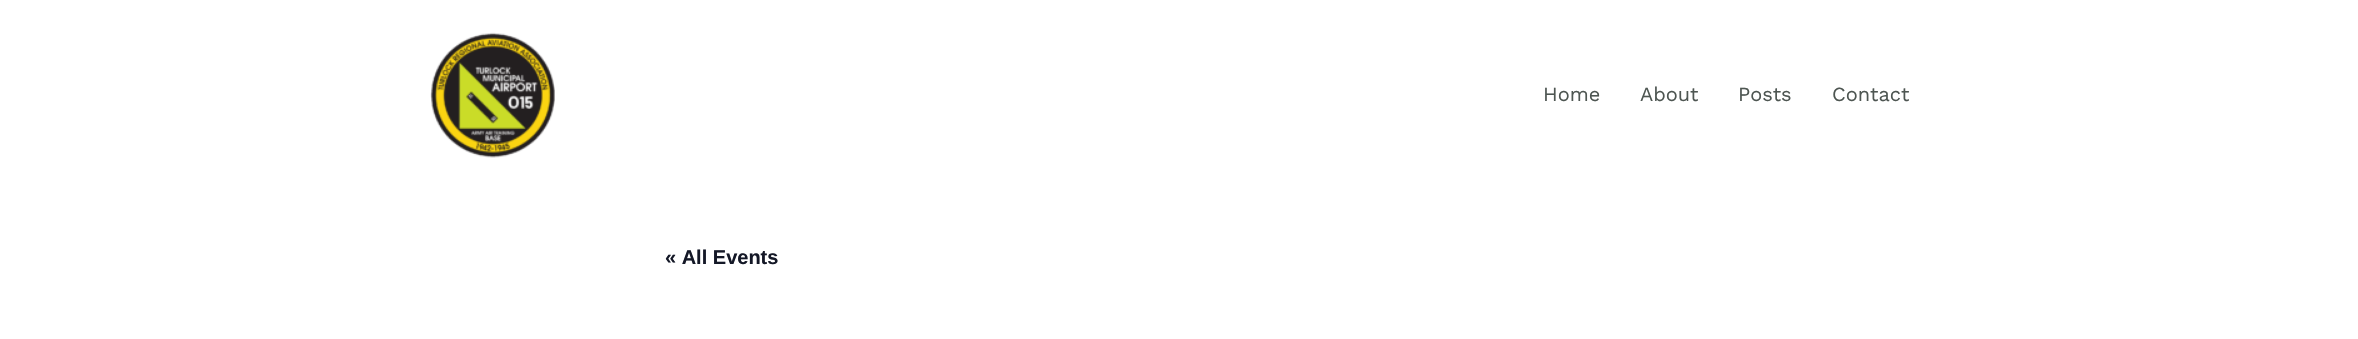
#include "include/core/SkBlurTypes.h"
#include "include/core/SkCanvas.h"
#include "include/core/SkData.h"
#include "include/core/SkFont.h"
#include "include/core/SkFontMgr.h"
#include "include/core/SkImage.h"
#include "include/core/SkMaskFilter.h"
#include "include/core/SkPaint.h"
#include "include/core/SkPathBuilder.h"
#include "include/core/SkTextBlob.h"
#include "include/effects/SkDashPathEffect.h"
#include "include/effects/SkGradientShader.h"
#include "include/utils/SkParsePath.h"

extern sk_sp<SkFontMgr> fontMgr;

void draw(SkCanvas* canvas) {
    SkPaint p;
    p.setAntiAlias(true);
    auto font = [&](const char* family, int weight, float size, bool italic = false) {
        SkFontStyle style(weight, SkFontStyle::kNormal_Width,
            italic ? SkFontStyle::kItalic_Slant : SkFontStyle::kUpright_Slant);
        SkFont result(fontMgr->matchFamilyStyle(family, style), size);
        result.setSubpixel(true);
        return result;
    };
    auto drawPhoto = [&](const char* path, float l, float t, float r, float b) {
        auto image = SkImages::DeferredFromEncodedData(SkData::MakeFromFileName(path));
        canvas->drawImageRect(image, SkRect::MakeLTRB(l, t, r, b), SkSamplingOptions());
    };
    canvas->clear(0xFFFFFFFF);
    drawPhoto("media/1.png", 430, 32, 555, 158);
    auto font1 = font("Work Sans", 400, 20);
    p.setColor(0xFF4E5652);
    {
        const struct { const char* s; float x, y; } items[] = {
            {"Home", 1543, 101},
            {"About", 1640, 101},
            {"Posts", 1738, 101},
            {"Contact", 1832, 101},
        };
        for (auto [s, x, y] : items) {
            canvas->drawString(s, x, y, font1, p);
        }
    }
    auto font2 = font("Liberation Sans", 700, 20);
    p.setColor(0xFF141827);
    canvas->drawString("« All Events", 665, 264, font2, p);
}
